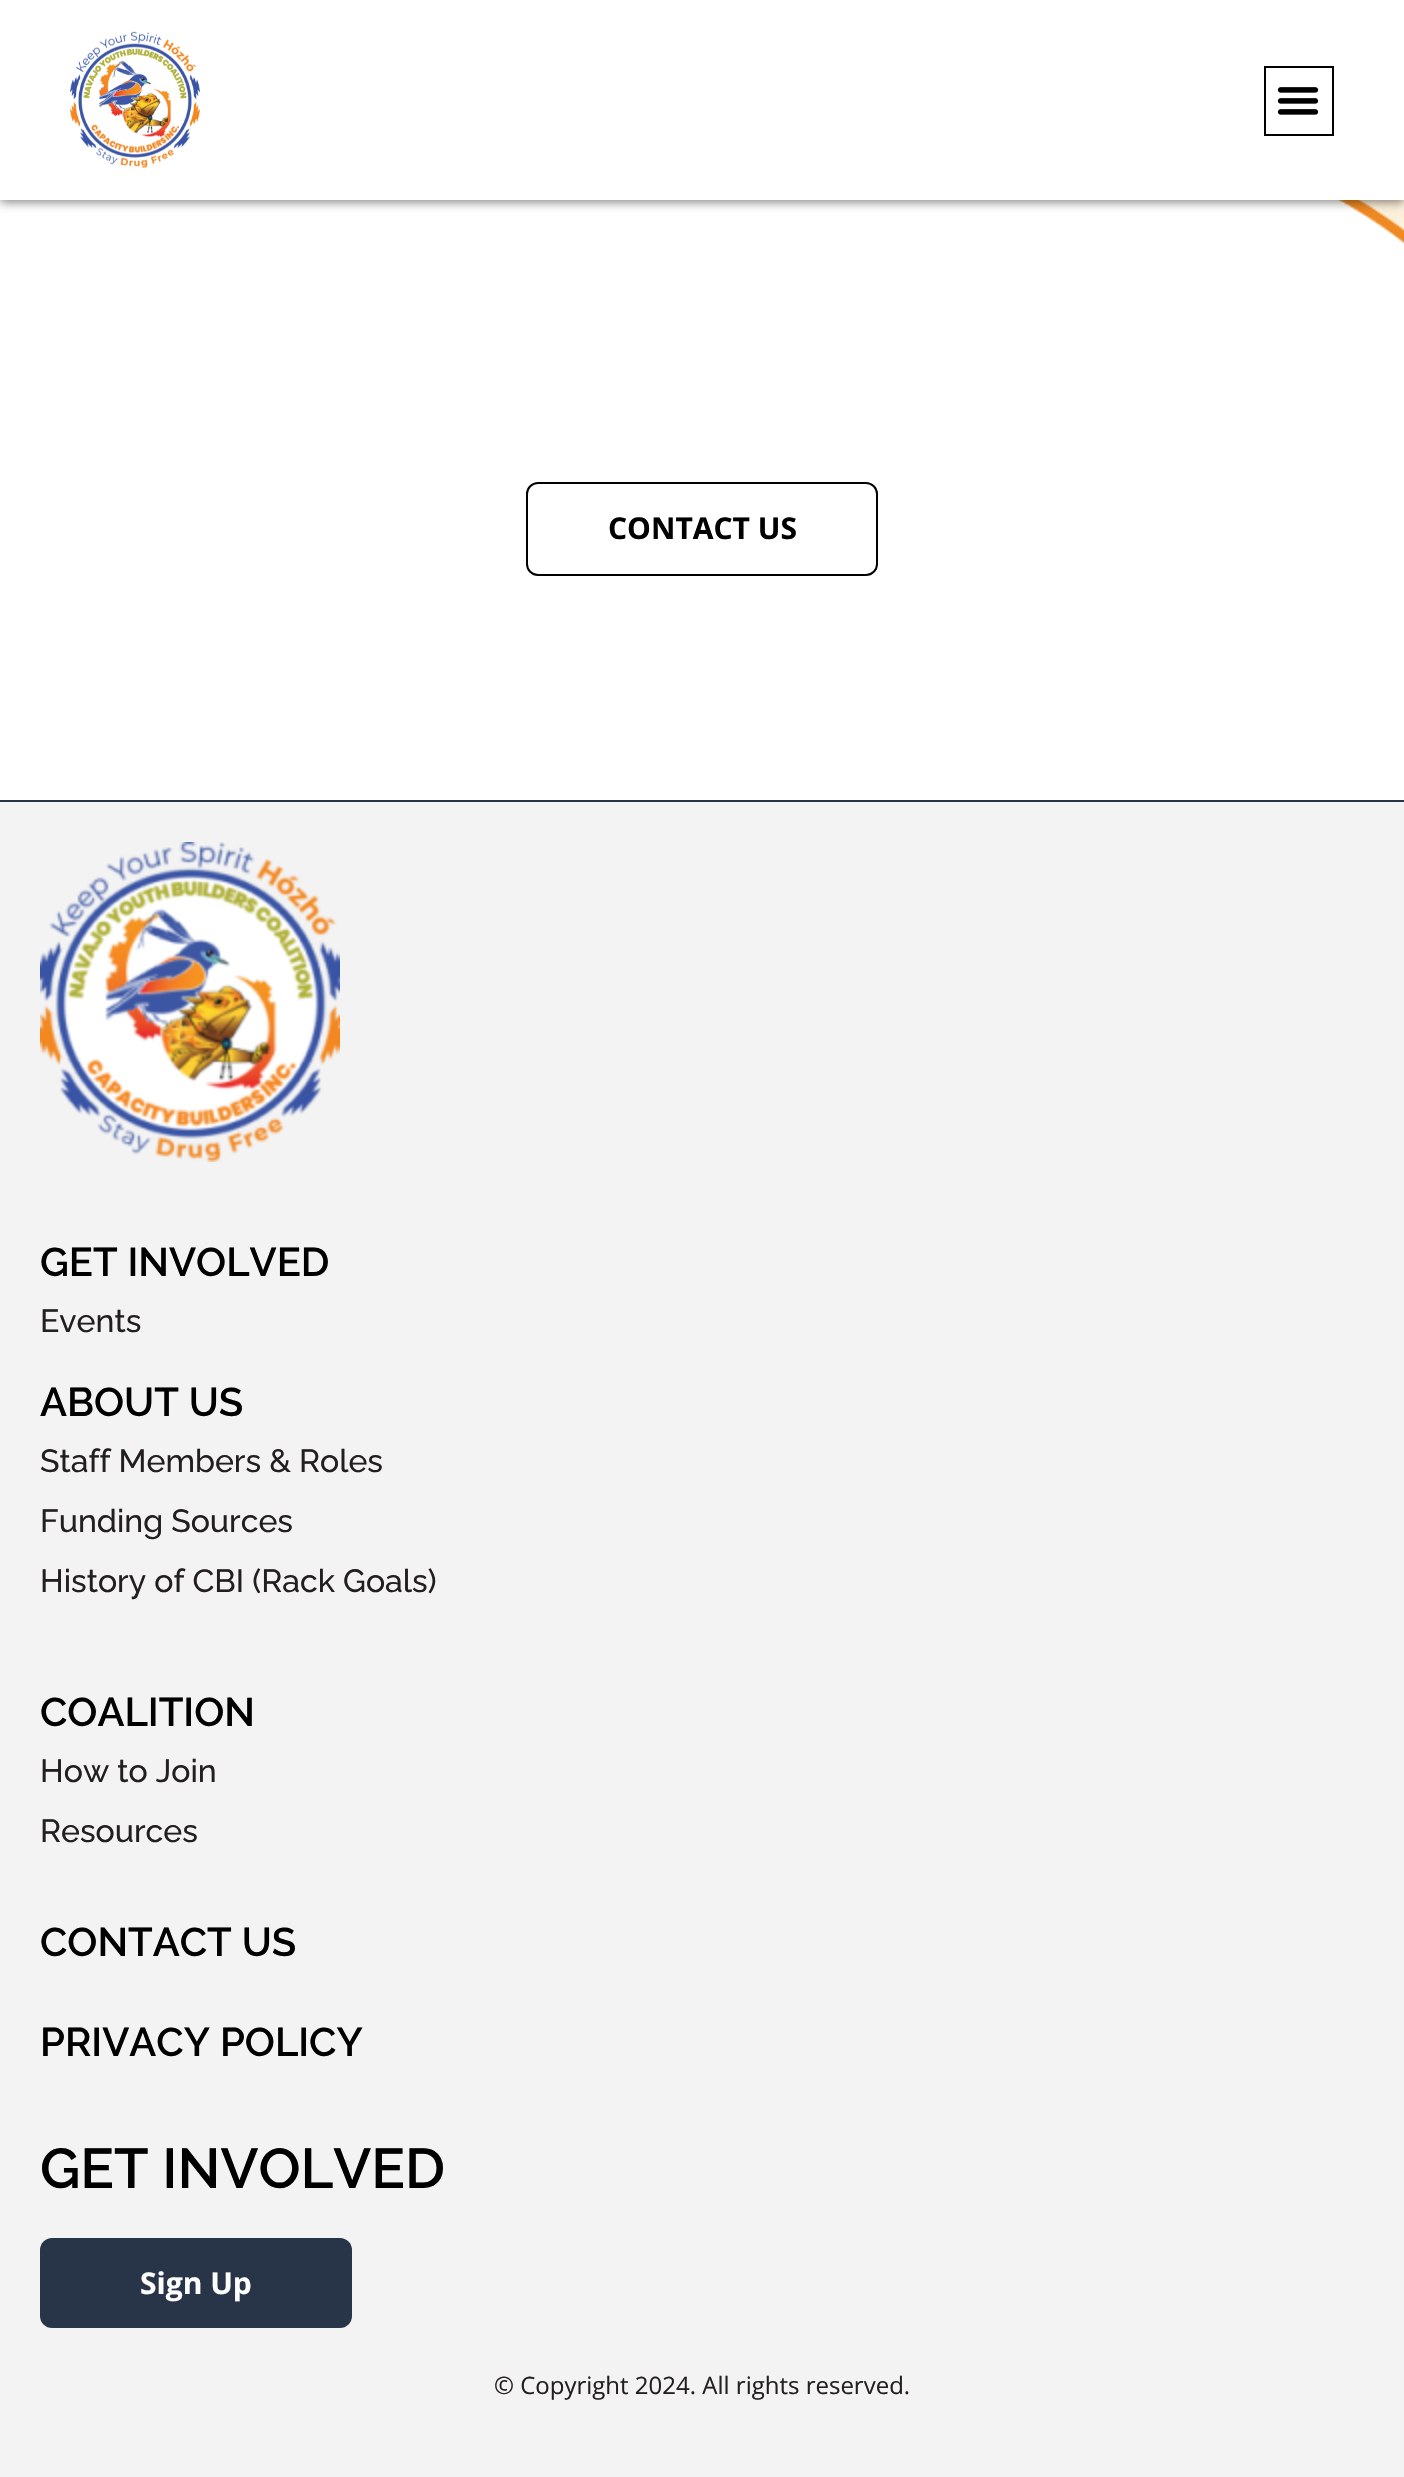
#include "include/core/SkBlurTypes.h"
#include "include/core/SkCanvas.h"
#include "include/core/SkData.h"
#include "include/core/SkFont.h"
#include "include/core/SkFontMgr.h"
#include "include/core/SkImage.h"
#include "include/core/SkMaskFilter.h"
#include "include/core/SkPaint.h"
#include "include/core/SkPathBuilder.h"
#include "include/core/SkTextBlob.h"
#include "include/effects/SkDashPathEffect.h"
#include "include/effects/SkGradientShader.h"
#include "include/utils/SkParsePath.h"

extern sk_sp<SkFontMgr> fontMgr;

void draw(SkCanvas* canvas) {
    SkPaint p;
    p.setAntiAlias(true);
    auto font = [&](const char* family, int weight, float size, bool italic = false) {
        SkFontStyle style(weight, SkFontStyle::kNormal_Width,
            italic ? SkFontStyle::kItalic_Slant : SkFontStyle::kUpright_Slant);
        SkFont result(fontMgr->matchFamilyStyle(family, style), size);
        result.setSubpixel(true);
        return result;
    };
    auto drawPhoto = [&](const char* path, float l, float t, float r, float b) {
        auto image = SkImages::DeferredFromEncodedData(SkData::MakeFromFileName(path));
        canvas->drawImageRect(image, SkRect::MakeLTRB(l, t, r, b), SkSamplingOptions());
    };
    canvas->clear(0xFFF3F3F3);
    drawPhoto("media/3.png", 1357, 200, 1404, 232);
    drawPhoto("media/4.png", 0, 200, 1404, 800);
    p.setColor(0x80000000);
    p.setMaskFilter(SkMaskFilter::MakeBlur(kNormal_SkBlurStyle, 5));
    canvas->drawRect(SkRect::MakeLTRB(0, 2, 1404, 202), p);
    p.setMaskFilter(nullptr);
    p.setColor(0xFFFFFFFF);
    canvas->drawRect(SkRect::MakeLTRB(0, 0, 1404, 200), p);
    drawPhoto("media/1.png", 70, 31, 200, 168);
    p.setStyle(SkPaint::kStroke_Style);
    p.setStrokeWidth(2);
    p.setColor(0xFF000000);
    canvas->drawRect(SkRect::MakeLTRB(1265, 67, 1333, 135), p);
    drawPhoto("media/2.png", 1277, 87, 1319, 115);
    canvas->drawRoundRect(SkRect::MakeLTRB(527, 483, 877, 575), 11, 11, p);
    auto font1 = font("Open Sans", 700, 30);
    p.setStyle(SkPaint::kFill_Style);
    canvas->drawString("CONTACT US", 608, 539, font1, p);
    p.setColor(0xFF283549);
    canvas->drawRect(SkRect::MakeLTRB(0, 800, 1404, 802), p);
    drawPhoto("media/5.png", 40, 842, 340, 1162);
    auto font2 = font("Raleway", 600, 40);
    p.setColor(0xFF000000);
    canvas->drawString("GET INVOLVED", 40, 1276, font2, p);
    auto font3 = font("Raleway", 500, 32);
    p.setColor(0xFF231F20);
    canvas->drawString("Events", 40, 1332, font3, p);
    p.setColor(0xFF000000);
    canvas->drawString("ABOUT US", 40, 1416, font2, p);
    p.setColor(0xFF231F20);
    {
        const struct { const char* s; float x, y; } items[] = {
            {"Staff Members & Roles", 40, 1472},
            {"Funding Sources", 40, 1532},
            {"History of CBI (Rack Goals)", 40, 1592},
        };
        for (auto [s, x, y] : items) {
            canvas->drawString(s, x, y, font3, p);
        }
    }
    p.setColor(0xFF000000);
    canvas->drawString("COALITION", 40, 1726, font2, p);
    p.setColor(0xFF231F20);
    canvas->drawString("How to Join", 40, 1782, font3, p);
    canvas->drawString("Resources", 40, 1842, font3, p);
    p.setColor(0xFF000000);
    canvas->drawString("CONTACT US", 40, 1956, font2, p);
    canvas->drawString("PRIVACY POLICY", 40, 2056, font2, p);
    auto font4 = font("Raleway", 600, 56);
    canvas->drawString("GET INVOLVED", 40, 2188, font4, p);
    p.setColor(0xFF283549);
    canvas->drawRoundRect(SkRect::MakeLTRB(40, 2238, 352, 2328), 12, 12, p);
    p.setColor(0xFFFFFFFF);
    canvas->drawString("Sign Up", 140, 2294, font1, p);
    auto font5 = font("Open Sans", 400, 24);
    p.setColor(0xFF231F20);
    canvas->drawString("© Copyright 2024. All rights reserved.", 494, 2394, font5, p);
}
